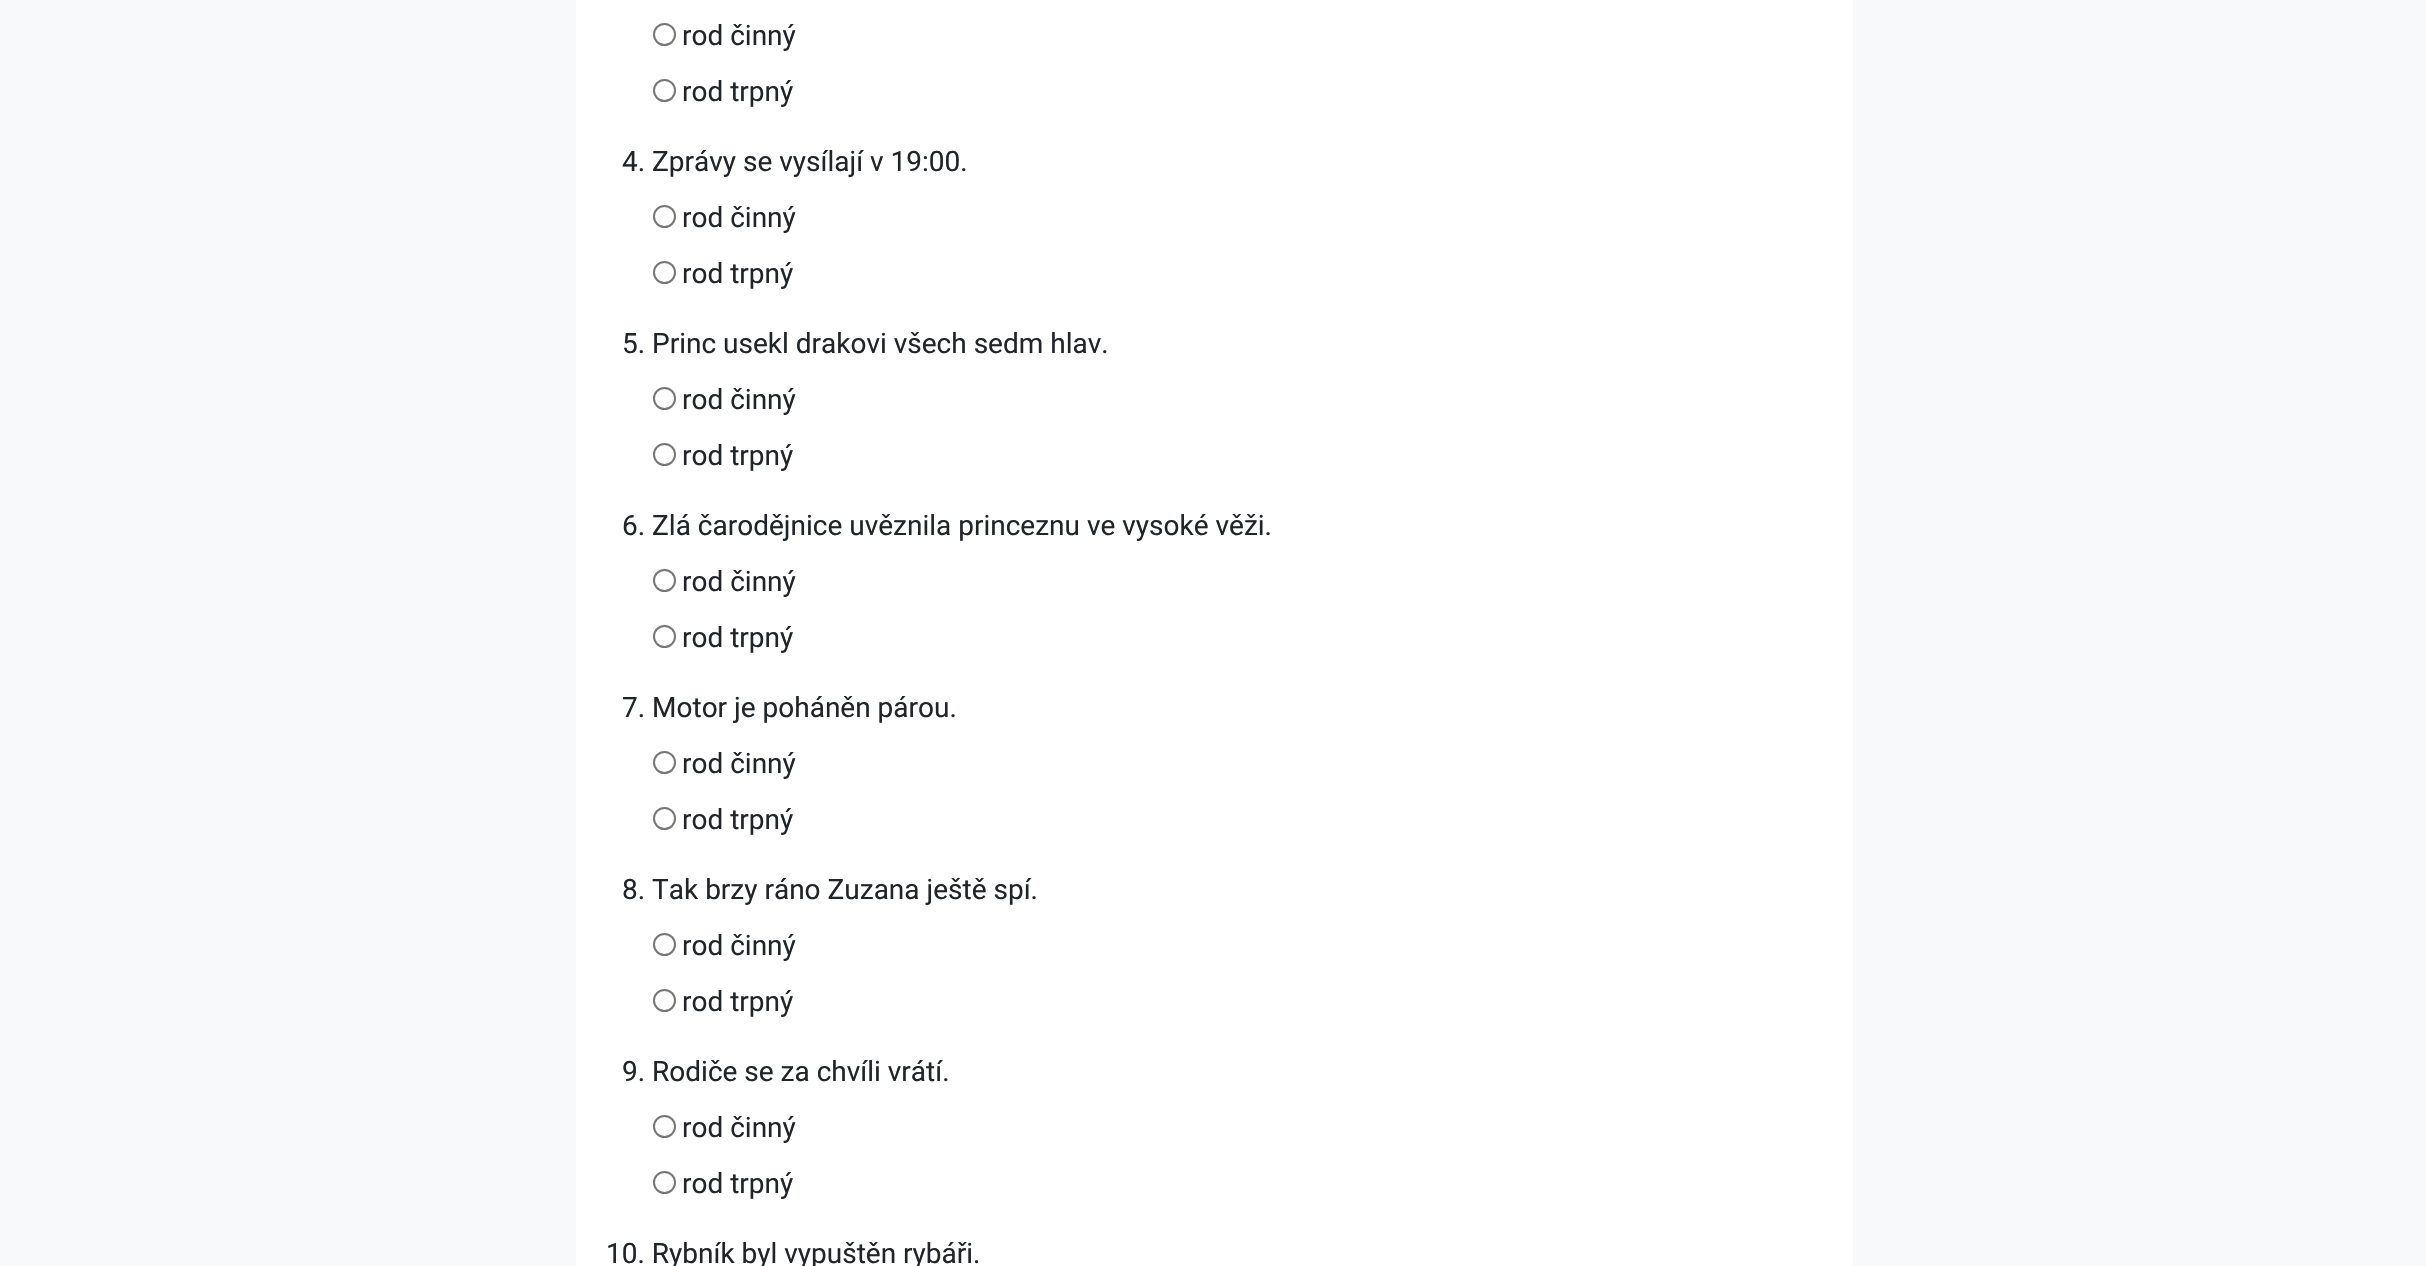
#include "include/core/SkBlurTypes.h"
#include "include/core/SkCanvas.h"
#include "include/core/SkData.h"
#include "include/core/SkFont.h"
#include "include/core/SkFontMgr.h"
#include "include/core/SkImage.h"
#include "include/core/SkMaskFilter.h"
#include "include/core/SkPaint.h"
#include "include/core/SkPathBuilder.h"
#include "include/core/SkTextBlob.h"
#include "include/effects/SkDashPathEffect.h"
#include "include/effects/SkGradientShader.h"
#include "include/utils/SkParsePath.h"

extern sk_sp<SkFontMgr> fontMgr;

void draw(SkCanvas* canvas) {
    SkPaint p;
    p.setAntiAlias(true);
    auto font = [&](const char* family, int weight, float size, bool italic = false) {
        SkFontStyle style(weight, SkFontStyle::kNormal_Width,
            italic ? SkFontStyle::kItalic_Slant : SkFontStyle::kUpright_Slant);
        SkFont result(fontMgr->matchFamilyStyle(family, style), size);
        result.setSubpixel(true);
        return result;
    };
    canvas->clear(0xFFF8F9FA);
    p.setColor(0xFFFFFFFF);
    canvas->drawRect(SkRect::MakeLTRB(576, 0, 1853, 1266), p);
    p.setStyle(SkPaint::kStroke_Style);
    p.setStrokeWidth(2);
    p.setColor(0xFF767676);
    canvas->drawCircle(664.5f, 34.5f, 10.5f, p);
    auto font1 = font("Roboto", 400, 28);
    p.setStyle(SkPaint::kFill_Style);
    p.setColor(0xFF212529);
    canvas->drawString("rod činný", 682, 45, font1, p);
    p.setStyle(SkPaint::kStroke_Style);
    p.setColor(0xFF767676);
    canvas->drawCircle(664.5f, 90.5f, 10.5f, p);
    p.setStyle(SkPaint::kFill_Style);
    p.setColor(0xFF212529);
    canvas->drawString("rod trpný", 682, 101, font1, p);
    canvas->drawString("4. Zprávy se vysílají v 19:00.", 622, 171, font1, p);
    p.setStyle(SkPaint::kStroke_Style);
    p.setColor(0xFF767676);
    canvas->drawCircle(664.5f, 216.5f, 10.5f, p);
    p.setStyle(SkPaint::kFill_Style);
    p.setColor(0xFF212529);
    canvas->drawString("rod činný", 682, 227, font1, p);
    p.setStyle(SkPaint::kStroke_Style);
    p.setColor(0xFF767676);
    canvas->drawCircle(664.5f, 272.5f, 10.5f, p);
    p.setStyle(SkPaint::kFill_Style);
    p.setColor(0xFF212529);
    canvas->drawString("rod trpný", 682, 283, font1, p);
    canvas->drawString("5. Princ usekl drakovi všech sedm hlav.", 622, 353, font1, p);
    p.setStyle(SkPaint::kStroke_Style);
    p.setColor(0xFF767676);
    canvas->drawCircle(664.5f, 398.5f, 10.5f, p);
    p.setStyle(SkPaint::kFill_Style);
    p.setColor(0xFF212529);
    canvas->drawString("rod činný", 682, 409, font1, p);
    p.setStyle(SkPaint::kStroke_Style);
    p.setColor(0xFF767676);
    canvas->drawCircle(664.5f, 454.5f, 10.5f, p);
    p.setStyle(SkPaint::kFill_Style);
    p.setColor(0xFF212529);
    canvas->drawString("rod trpný", 682, 465, font1, p);
    canvas->drawString("6. Zlá čarodějnice uvěznila princeznu ve vysoké věži.", 622, 535, font1, p);
    p.setStyle(SkPaint::kStroke_Style);
    p.setColor(0xFF767676);
    canvas->drawCircle(664.5f, 580.5f, 10.5f, p);
    p.setStyle(SkPaint::kFill_Style);
    p.setColor(0xFF212529);
    canvas->drawString("rod činný", 682, 591, font1, p);
    p.setStyle(SkPaint::kStroke_Style);
    p.setColor(0xFF767676);
    canvas->drawCircle(664.5f, 636.5f, 10.5f, p);
    p.setStyle(SkPaint::kFill_Style);
    p.setColor(0xFF212529);
    canvas->drawString("rod trpný", 682, 647, font1, p);
    canvas->drawString("7. Motor je poháněn párou.", 622, 717, font1, p);
    p.setStyle(SkPaint::kStroke_Style);
    p.setColor(0xFF767676);
    canvas->drawCircle(664.5f, 762.5f, 10.5f, p);
    p.setStyle(SkPaint::kFill_Style);
    p.setColor(0xFF212529);
    canvas->drawString("rod činný", 682, 773, font1, p);
    p.setStyle(SkPaint::kStroke_Style);
    p.setColor(0xFF767676);
    canvas->drawCircle(664.5f, 818.5f, 10.5f, p);
    p.setStyle(SkPaint::kFill_Style);
    p.setColor(0xFF212529);
    canvas->drawString("rod trpný", 682, 829, font1, p);
    canvas->drawString("8. Tak brzy ráno Zuzana ještě spí.", 622, 899, font1, p);
    p.setStyle(SkPaint::kStroke_Style);
    p.setColor(0xFF767676);
    canvas->drawCircle(664.5f, 944.5f, 10.5f, p);
    p.setStyle(SkPaint::kFill_Style);
    p.setColor(0xFF212529);
    canvas->drawString("rod činný", 682, 955, font1, p);
    p.setStyle(SkPaint::kStroke_Style);
    p.setColor(0xFF767676);
    canvas->drawCircle(664.5f, 1000.5f, 10.5f, p);
    p.setStyle(SkPaint::kFill_Style);
    p.setColor(0xFF212529);
    canvas->drawString("rod trpný", 682, 1011, font1, p);
    canvas->drawString("9. Rodiče se za chvíli vrátí.", 622, 1081, font1, p);
    p.setStyle(SkPaint::kStroke_Style);
    p.setColor(0xFF767676);
    canvas->drawCircle(664.5f, 1126.5f, 10.5f, p);
    p.setStyle(SkPaint::kFill_Style);
    p.setColor(0xFF212529);
    canvas->drawString("rod činný", 682, 1137, font1, p);
    p.setStyle(SkPaint::kStroke_Style);
    p.setColor(0xFF767676);
    canvas->drawCircle(664.5f, 1182.5f, 10.5f, p);
    p.setStyle(SkPaint::kFill_Style);
    p.setColor(0xFF212529);
    canvas->drawString("rod trpný", 682, 1193, font1, p);
    canvas->drawString("10. Rybník byl vypuštěn rybáři.", 606, 1263, font1, p);
}
